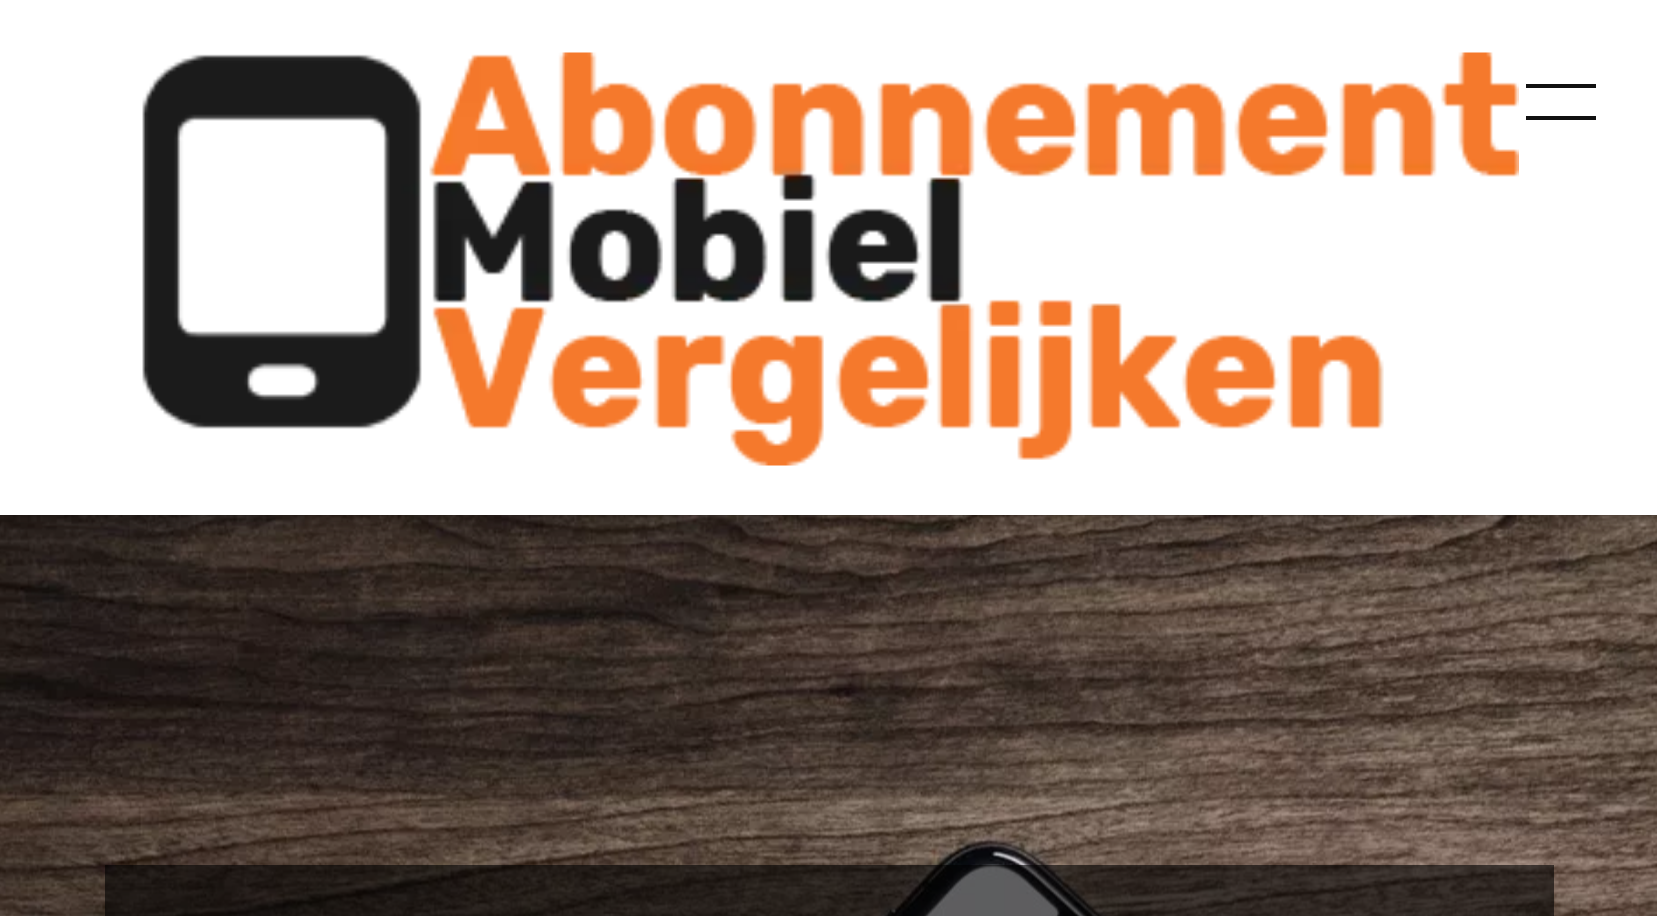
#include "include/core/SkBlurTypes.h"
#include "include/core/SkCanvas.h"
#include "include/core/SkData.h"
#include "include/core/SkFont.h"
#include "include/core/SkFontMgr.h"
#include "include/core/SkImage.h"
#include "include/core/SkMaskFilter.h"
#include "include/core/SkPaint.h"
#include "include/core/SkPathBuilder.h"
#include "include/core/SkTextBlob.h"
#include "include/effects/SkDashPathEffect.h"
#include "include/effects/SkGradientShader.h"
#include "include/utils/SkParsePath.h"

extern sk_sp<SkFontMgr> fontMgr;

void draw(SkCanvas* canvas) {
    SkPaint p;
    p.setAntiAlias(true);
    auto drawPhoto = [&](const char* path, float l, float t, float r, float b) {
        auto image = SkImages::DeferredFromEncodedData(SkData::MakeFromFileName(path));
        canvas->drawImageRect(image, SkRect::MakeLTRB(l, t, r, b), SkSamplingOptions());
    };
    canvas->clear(0xFFFFFFFF);
    drawPhoto("media/2.png", 0, 515, 1657, 916);
    p.setColor(0x40000000);
    p.setMaskFilter(SkMaskFilter::MakeBlur(kNormal_SkBlurStyle, 9));
    canvas->drawRect(SkRect::MakeLTRB(0, 0, 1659, 515), p);
    p.setMaskFilter(nullptr);
    p.setColor(0xFFFFFFFF);
    canvas->drawRect(SkRect::MakeLTRB(0, 0, 1657, 515), p);
    drawPhoto("media/1.png", 142, 52, 1519, 466);
    {
        const struct { float l, t, r, b; SkColor color; } items[] = {
            {1526, 84, 1596, 88, 0xFF111111},
            {1526, 116, 1596, 120, 0xFF111111},
            {105, 865, 1554, 916, 0x99000000},
        };
        for (auto [l, t, r, b, color] : items) {
            p.setColor(color);
            canvas->drawRect(SkRect::MakeLTRB(l, t, r, b), p);
        }
    }
}
